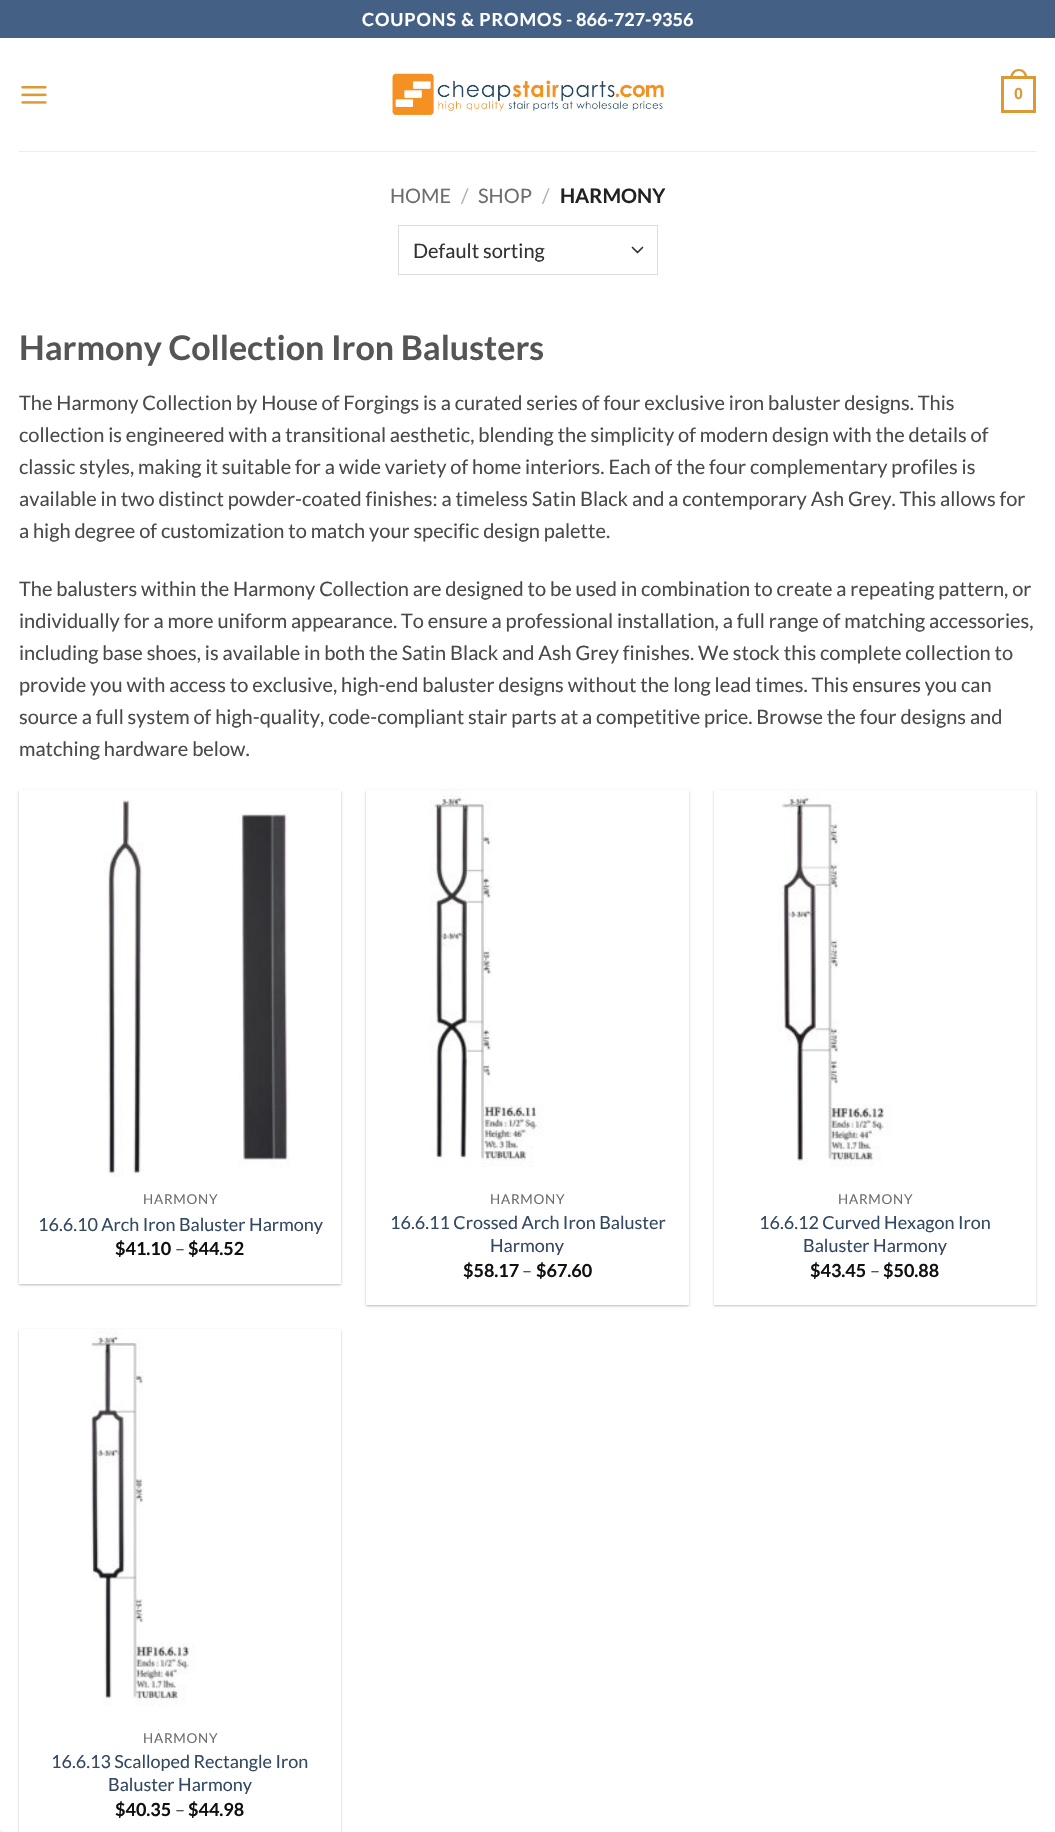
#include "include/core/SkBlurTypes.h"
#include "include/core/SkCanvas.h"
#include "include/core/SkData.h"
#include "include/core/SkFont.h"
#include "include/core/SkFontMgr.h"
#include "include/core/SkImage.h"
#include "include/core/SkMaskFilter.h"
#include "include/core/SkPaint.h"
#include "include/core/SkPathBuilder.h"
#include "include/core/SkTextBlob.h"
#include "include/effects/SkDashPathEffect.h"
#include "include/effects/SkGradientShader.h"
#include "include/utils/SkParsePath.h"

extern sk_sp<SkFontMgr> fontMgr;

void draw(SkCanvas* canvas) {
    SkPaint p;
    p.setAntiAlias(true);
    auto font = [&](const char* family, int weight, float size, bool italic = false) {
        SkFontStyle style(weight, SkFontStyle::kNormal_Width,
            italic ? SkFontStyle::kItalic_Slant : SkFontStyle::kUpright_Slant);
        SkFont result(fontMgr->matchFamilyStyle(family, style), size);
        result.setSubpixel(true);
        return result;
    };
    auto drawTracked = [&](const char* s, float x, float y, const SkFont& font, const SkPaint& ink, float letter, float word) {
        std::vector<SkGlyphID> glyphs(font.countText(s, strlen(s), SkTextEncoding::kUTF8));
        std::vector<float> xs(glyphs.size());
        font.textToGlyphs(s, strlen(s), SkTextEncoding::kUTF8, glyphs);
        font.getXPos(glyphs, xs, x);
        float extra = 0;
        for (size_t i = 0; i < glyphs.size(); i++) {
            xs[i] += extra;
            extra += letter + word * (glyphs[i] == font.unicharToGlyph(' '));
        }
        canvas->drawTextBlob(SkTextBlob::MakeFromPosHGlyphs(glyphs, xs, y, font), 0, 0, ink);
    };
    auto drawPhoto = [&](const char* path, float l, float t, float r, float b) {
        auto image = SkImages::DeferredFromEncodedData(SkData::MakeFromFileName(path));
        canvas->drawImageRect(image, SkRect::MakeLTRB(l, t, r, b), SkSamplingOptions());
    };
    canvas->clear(0xFFFFFFFF);
    p.setColor(0xFF446084);
    canvas->drawRect(SkRect::MakeLTRB(0, 0, 1055, 38), p);
    auto font1 = font("Lato", 700, 18);
    p.setColor(0xFFFFFFFF);
    drawTracked("COUPONS & PROMOS", 362, 26, font1, p, 0.9f, 0);
    auto font2 = font("Lato", 400, 18);
    canvas->drawString("-", 566, 26, font2, p);
    canvas->drawString("866-727-9356", 576, 26, font1, p);
    drawPhoto("media/1.png", 21, 86, 47, 104);
    drawPhoto("media/2.png", 392, 72, 664, 115);
    p.setStyle(SkPaint::kStroke_Style);
    p.setStrokeWidth(3);
    p.setColor(0xFFDD9933);
    canvas->drawRect(SkRect::MakeLTRB(1002.5f, 77.5f, 1034.5f, 111.5f), p);
    p.setStyle(SkPaint::kFill_Style);
    canvas->drawPath(SkPathBuilder(SkPathFillType::kEvenOdd).moveTo(1019, 69).cubicTo(1024.5f, 69, 1027.5f, 73.5f, 1027.5f, 79).lineTo(1010, 79).cubicTo(1010, 73.5f, 1013, 69, 1019, 69).close().moveTo(1019, 71).cubicTo(1023, 71, 1025, 75, 1025, 79).lineTo(1012.5f, 79).cubicTo(1012.5f, 75, 1014.5f, 71, 1019, 71).close().detach(), p);
    auto font3 = font("Liberation Sans", 700, 16);
    canvas->drawString("0", 1014, 99, font3, p);
    p.setColor(0xFFEDEDED);
    canvas->drawRect(SkRect::MakeLTRB(19, 151, 1036, 152), p);
    auto font4 = font("Lato", 400, 20);
    p.setColor(0xFF6E6E6E);
    canvas->drawString("HOME", 390, 203, font4, p);
    p.setColor(0xFFB2B2B2);
    canvas->drawString("/", 461, 203, font4, p);
    p.setColor(0xFF6E6E6E);
    canvas->drawString("SHOP", 478, 203, font4, p);
    p.setColor(0xFFB2B2B2);
    canvas->drawString("/", 542, 203, font4, p);
    auto font5 = font("Lato", 700, 20);
    p.setColor(0xFF222222);
    canvas->drawString("HARMONY", 560, 203, font5, p);
    p.setStyle(SkPaint::kStroke_Style);
    p.setStrokeWidth(1.7f);
    p.setStrokeCap(SkPaint::kRound_Cap);
    p.setStrokeJoin(SkPaint::kRound_Join);
    p.setColor(0xFF333333);
    canvas->drawPath(SkPathBuilder().moveTo(632.5f, 247.5f).lineTo(637.5f, 252.5f).lineTo(642.5f, 247.5f).detach(), p);
    p.setStrokeWidth(1);
    p.setStrokeCap(SkPaint::kButt_Cap);
    p.setStrokeJoin(SkPaint::kMiter_Join);
    p.setColor(0xFFDDDDDD);
    canvas->drawRect(SkRect::MakeLTRB(398.5f, 225.5f, 657.5f, 274.5f), p);
    p.setStyle(SkPaint::kFill_Style);
    p.setColor(0xFF333333);
    canvas->drawString("Default sorting", 413, 258, font4, p);
    auto font6 = font("Lato", 700, 34);
    p.setColor(0xFF555555);
    canvas->drawString("Harmony Collection Iron Balusters", 19, 360, font6, p);
    p.setColor(0xFF4A4A4A);
    {
        const struct { const char* s; float x, y; } items[] = {
            {"The Harmony Collection by House of Forgings is a curated series of four exclusive iron baluster designs. This", 19, 410},
            {"collection is engineered with a transitional aesthetic, blending the simplicity of modern design with the details of", 19, 442},
            {"classic styles, making it suitable for a wide variety of home interiors. Each of the four complementary profiles is", 19, 474},
            {"available in two distinct powder-coated finishes: a timeless Satin Black and a contemporary Ash Grey. This allows for", 19, 506},
            {"a high degree of customization to match your specific design palette.", 19, 538},
            {"The balusters within the Harmony Collection are designed to be used in combination to create a repeating pattern, or", 19, 596},
            {"individually for a more uniform appearance. To ensure a professional installation, a full range of matching accessories,", 19, 628},
            {"including base shoes, is available in both the Satin Black and Ash Grey finishes. We stock this complete collection to", 19, 660},
            {"provide you with access to exclusive, high-end baluster designs without the long lead times. This ensures you can", 19, 692},
            {"source a full system of high-quality, code-compliant stair parts at a competitive price. Browse the four designs and", 19, 724},
            {"matching hardware below.", 19, 756},
        };
        for (auto [s, x, y] : items) {
            canvas->drawString(s, x, y, font4, p);
        }
    }
    p.setColor(0x3D000000);
    p.setMaskFilter(SkMaskFilter::MakeBlur(kNormal_SkBlurStyle, 1));
    canvas->drawRect(SkRect::MakeLTRB(19, 791, 341, 1285), p);
    p.setMaskFilter(nullptr);
    p.setColor(0x1F000000);
    p.setMaskFilter(SkMaskFilter::MakeBlur(kNormal_SkBlurStyle, 2));
    canvas->drawRect(SkRect::MakeLTRB(21, 794, 339, 1283), p);
    p.setMaskFilter(nullptr);
    p.setColor(0xFFFFFFFF);
    canvas->drawRect(SkRect::MakeLTRB(19, 790, 341, 1284), p);
    drawPhoto("media/3.png", 103, 800, 290, 1177);
    auto font7 = font("Lato", 400, 13.5f);
    p.setColor(0xFF6E6E6E);
    drawTracked("HARMONY", 143, 1204, font7, p, 0.75f, 0);
    p.setColor(0xFF334862);
    canvas->drawString("16.6.10 Arch Iron Baluster Harmony", 38, 1231, font2, p);
    p.setColor(0xFF111111);
    canvas->drawString("$41.10", 115, 1255, font1, p);
    p.setColor(0xFF4A4A4A);
    canvas->drawString("–", 175, 1255, font2, p);
    p.setColor(0xFF111111);
    canvas->drawString("$44.52", 188, 1255, font1, p);
    p.setColor(0x3D000000);
    p.setMaskFilter(SkMaskFilter::MakeBlur(kNormal_SkBlurStyle, 1));
    canvas->drawRect(SkRect::MakeLTRB(366, 791, 689, 1306), p);
    p.setMaskFilter(nullptr);
    p.setColor(0x1F000000);
    p.setMaskFilter(SkMaskFilter::MakeBlur(kNormal_SkBlurStyle, 2));
    canvas->drawRect(SkRect::MakeLTRB(369, 794, 686, 1304), p);
    p.setMaskFilter(nullptr);
    p.setColor(0xFFFFFFFF);
    canvas->drawRect(SkRect::MakeLTRB(366, 790, 689, 1305), p);
    drawPhoto("media/4.png", 429, 790, 544, 1167);
    p.setColor(0xFF6E6E6E);
    drawTracked("HARMONY", 490, 1204, font7, p, 0.75f, 0);
    p.setColor(0xFF334862);
    canvas->drawString("16.6.11 Crossed Arch Iron Baluster", 390, 1229, font2, p);
    canvas->drawString("Harmony", 490, 1252, font2, p);
    p.setColor(0xFF111111);
    canvas->drawString("$58.17", 463, 1277, font1, p);
    p.setColor(0xFF4A4A4A);
    canvas->drawString("–", 522, 1277, font2, p);
    p.setColor(0xFF111111);
    canvas->drawString("$67.60", 536, 1277, font1, p);
    canvas->save();
    canvas->clipPath(SkPathBuilder(SkPathFillType::kEvenOdd).moveTo(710, 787).lineTo(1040, 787).lineTo(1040, 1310).lineTo(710, 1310).close().moveTo(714, 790).lineTo(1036, 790).lineTo(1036, 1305).lineTo(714, 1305).close().detach(), true);
    p.setColor(0x3D000000);
    p.setMaskFilter(SkMaskFilter::MakeBlur(kNormal_SkBlurStyle, 1));
    canvas->drawRect(SkRect::MakeLTRB(714, 791, 1036, 1306), p);
    p.setMaskFilter(nullptr);
    canvas->restore();
    drawPhoto("media/5.png", 777, 790, 891, 1167);
    p.setColor(0xFF6E6E6E);
    drawTracked("HARMONY", 838, 1204, font7, p, 0.75f, 0);
    p.setColor(0xFF334862);
    canvas->drawString("16.6.12 Curved Hexagon Iron", 759, 1229, font2, p);
    canvas->drawString("Baluster Harmony", 803, 1252, font2, p);
    p.setColor(0xFF111111);
    canvas->drawString("$43.45", 810, 1277, font1, p);
    p.setColor(0xFF4A4A4A);
    canvas->drawString("–", 870, 1277, font2, p);
    p.setColor(0xFF111111);
    canvas->drawString("$50.88", 883, 1277, font1, p);
    canvas->save();
    canvas->clipPath(SkPathBuilder(SkPathFillType::kEvenOdd).moveTo(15, 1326).lineTo(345, 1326).lineTo(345, 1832).lineTo(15, 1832).close().moveTo(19, 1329).lineTo(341, 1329).lineTo(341, 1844).lineTo(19, 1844).close().detach(), true);
    p.setColor(0x3D000000);
    p.setMaskFilter(SkMaskFilter::MakeBlur(kNormal_SkBlurStyle, 1));
    canvas->drawRect(SkRect::MakeLTRB(19, 1330, 341, 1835), p);
    p.setMaskFilter(nullptr);
    canvas->restore();
    drawPhoto("media/6.png", 91, 1329, 196, 1706);
    p.setColor(0xFF6E6E6E);
    drawTracked("HARMONY", 143, 1743, font7, p, 0.75f, 0);
    p.setColor(0xFF334862);
    canvas->drawString("16.6.13 Scalloped Rectangle Iron", 51, 1768, font2, p);
    canvas->drawString("Baluster Harmony", 108, 1791, font2, p);
    p.setColor(0xFF111111);
    canvas->drawString("$40.35", 115, 1816, font1, p);
    p.setColor(0xFF4A4A4A);
    canvas->drawString("–", 175, 1816, font2, p);
    p.setColor(0xFF111111);
    canvas->drawString("$44.98", 188, 1816, font1, p);
    p.setColor(0xFFF5F5F5);
    canvas->drawRect(SkRect::MakeLTRB(0, 1830, 3, 1832), p);
}
